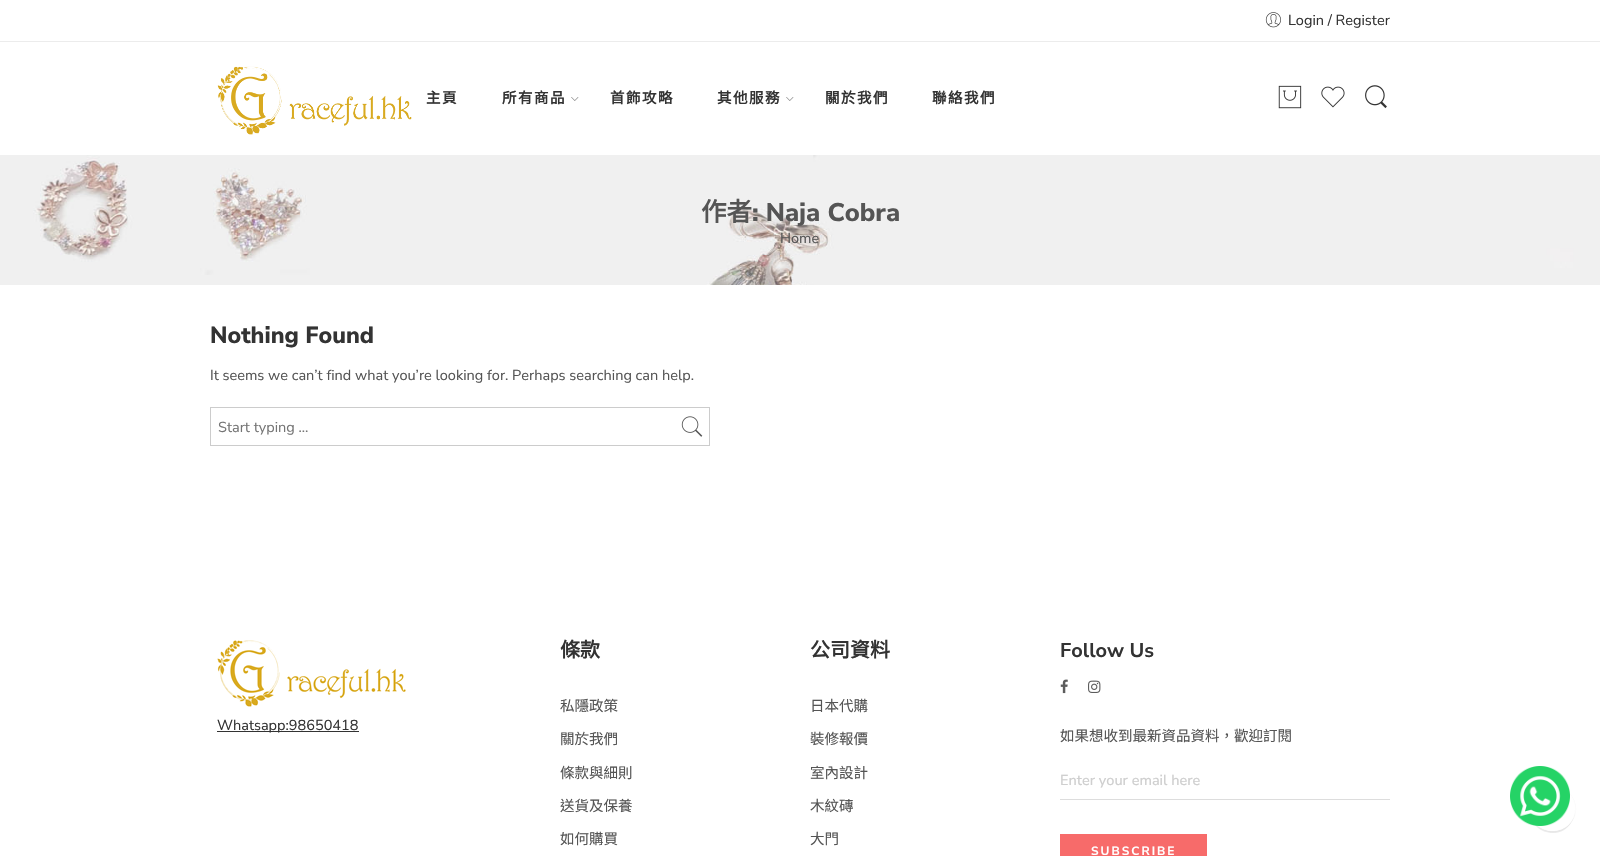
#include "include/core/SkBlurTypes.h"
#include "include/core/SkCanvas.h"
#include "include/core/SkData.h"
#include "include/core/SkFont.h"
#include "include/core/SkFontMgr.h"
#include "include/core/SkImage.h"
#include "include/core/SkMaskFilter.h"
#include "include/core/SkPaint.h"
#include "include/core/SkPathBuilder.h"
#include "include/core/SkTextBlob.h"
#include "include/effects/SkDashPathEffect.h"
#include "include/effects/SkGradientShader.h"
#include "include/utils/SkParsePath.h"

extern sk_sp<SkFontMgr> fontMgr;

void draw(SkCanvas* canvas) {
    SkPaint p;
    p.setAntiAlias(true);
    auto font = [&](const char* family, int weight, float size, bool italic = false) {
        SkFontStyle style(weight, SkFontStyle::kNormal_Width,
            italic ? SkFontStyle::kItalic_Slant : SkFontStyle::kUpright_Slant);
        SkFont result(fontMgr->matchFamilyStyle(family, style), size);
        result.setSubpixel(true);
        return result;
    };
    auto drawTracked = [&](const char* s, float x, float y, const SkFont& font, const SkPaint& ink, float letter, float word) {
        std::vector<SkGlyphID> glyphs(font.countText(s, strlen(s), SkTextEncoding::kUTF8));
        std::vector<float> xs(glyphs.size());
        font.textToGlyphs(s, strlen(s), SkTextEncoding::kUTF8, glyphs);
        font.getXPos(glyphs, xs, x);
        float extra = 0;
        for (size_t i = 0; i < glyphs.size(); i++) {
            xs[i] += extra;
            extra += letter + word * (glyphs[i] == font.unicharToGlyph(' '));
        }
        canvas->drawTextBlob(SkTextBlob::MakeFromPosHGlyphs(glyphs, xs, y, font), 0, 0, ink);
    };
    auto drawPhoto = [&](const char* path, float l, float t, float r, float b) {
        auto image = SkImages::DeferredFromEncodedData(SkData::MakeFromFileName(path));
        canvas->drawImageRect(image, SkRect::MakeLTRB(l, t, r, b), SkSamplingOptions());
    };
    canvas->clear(0xFFFFFFFF);
    p.setColor(0xFFECECEC);
    canvas->drawRect(SkRect::MakeLTRB(0, 41, 1600, 42), p);
    drawPhoto("media/1.png", 1265, 12, 1281, 28);
    auto font1 = font("Nunito Sans", 400, 14.5f);
    p.setColor(0xFF333333);
    canvas->drawString("Login / Register", 1288, 25, font1, p);
    drawPhoto("media/2.png", 217, 66, 412, 135);
    auto font2 = font("Noto Sans CJK HK", 700, 14.5f);
    drawTracked("主頁", 426, 103, font2, p, 1.5f, 0);
    drawTracked("所有商品", 502, 103, font2, p, 1.5f, 0);
    drawPhoto("media/3.png", 571, 97, 579, 101);
    drawTracked("首飾攻略", 610, 103, font2, p, 1.5f, 0);
    drawTracked("其他服務", 717, 103, font2, p, 1.5f, 0);
    drawPhoto("media/3.png", 786, 97, 794, 101);
    drawTracked("關於我們", 825, 103, font2, p, 1.5f, 0);
    drawTracked("聯絡我們", 932, 103, font2, p, 1.5f, 0);
    drawPhoto("media/4.png", 1278, 85, 1302, 109);
    drawPhoto("media/5.png", 1321, 86, 1345, 108);
    drawPhoto("media/6.png", 1365, 85, 1387, 109);
    drawPhoto("media/7.png", 0, 155, 1600, 285);
    auto font3 = font("Noto Sans CJK HK", 700, 25.5f);
    p.setColor(0xFF555555);
    canvas->drawString("作者", 701, 221, font3, p);
    auto font4 = font("Nunito Sans", 800, 25.5f);
    canvas->drawString(": Naja Cobra", 752, 221, font4, p);
    canvas->drawString("Home", 780, 243, font1, p);
    auto font5 = font("Nunito Sans", 800, 23.25f);
    p.setColor(0xFF333333);
    canvas->drawString("Nothing Found", 210, 343, font5, p);
    p.setColor(0xFF555555);
    canvas->drawString("It seems we can’t find what you’re looking for. Perhaps searching can help.", 210, 380, font1, p);
    p.setStyle(SkPaint::kStroke_Style);
    p.setStrokeWidth(1);
    p.setColor(0xFFCCCCCC);
    canvas->drawRect(SkRect::MakeLTRB(210.5f, 407.5f, 709.5f, 445.5f), p);
    p.setStyle(SkPaint::kFill_Style);
    p.setColor(0xFF757575);
    canvas->drawString("Start typing ...", 218, 432, font1, p);
    drawPhoto("media/8.png", 681, 416, 703, 437);
    drawPhoto("media/9.png", 217, 640, 406, 707);
    p.setColor(0xFF333333);
    canvas->drawRect(SkRect::MakeLTRB(217, 731, 359, 732), p);
    canvas->drawString("Whatsapp:98650418", 217, 730, font1, p);
    auto font6 = font("Noto Sans CJK HK", 700, 20);
    canvas->drawString("條款", 560, 657, font6, p);
    auto font7 = font("Noto Sans CJK HK", 400, 14.5f);
    p.setColor(0xFF555555);
    {
        const struct { const char* s; float x, y; } items[] = {
            {"私隱政策", 560, 711},
            {"關於我們", 560, 744},
            {"條款與細則", 560, 778},
            {"送貨及保養", 560, 811},
            {"如何購買", 560, 844},
        };
        for (auto [s, x, y] : items) {
            canvas->drawString(s, x, y, font7, p);
        }
    }
    p.setColor(0xFF333333);
    canvas->drawString("公司資料", 810, 657, font6, p);
    p.setColor(0xFF555555);
    {
        const struct { const char* s; float x, y; } items[] = {
            {"日本代購", 810, 711},
            {"裝修報價", 810, 744},
            {"室內設計", 810, 778},
            {"木紋磚", 810, 811},
            {"大門", 810, 844},
        };
        for (auto [s, x, y] : items) {
            canvas->drawString(s, x, y, font7, p);
        }
    }
    auto font8 = font("Nunito Sans", 700, 20);
    p.setColor(0xFF333333);
    canvas->drawString("Follow Us", 1060, 657, font8, p);
    drawPhoto("media/10.png", 1060, 679, 1068, 694);
    drawPhoto("media/11.png", 1088, 680, 1101, 693);
    p.setColor(0xFF555555);
    canvas->drawString("如果想收到最新資品資料，歡迎訂閱", 1060, 741, font7, p);
    p.setColor(0xFFDDDDDD);
    canvas->drawRect(SkRect::MakeLTRB(1060, 799, 1390, 800), p);
    auto font9 = font("Nunito Sans", 500, 14.5f);
    p.setColor(0xFFCFCFCF);
    canvas->drawString("Enter your email here", 1060, 785, font9, p);
    p.setColor(0xFFF76B6A);
    canvas->drawRect(SkRect::MakeLTRB(1060, 834, 1207, 856), p);
    auto font10 = font("Nunito Sans", 700, 12);
    p.setColor(0xFFFFFFFF);
    drawTracked("SUBSCRIBE", 1091, 855, font10, p, 2, 0);
    p.setStyle(SkPaint::kStroke_Style);
    p.setStrokeWidth(0.5f);
    p.setColor(0xFFF7F7F7);
    canvas->drawCircle(1553, 809, 22.75f, p);
    p.setStyle(SkPaint::kFill_Style);
    p.setColor(0x14000000);
    canvas->drawPath(SkPathBuilder().moveTo(1530, 810).cubicTo(1529, 832, 1559, 842, 1571, 823).cubicTo(1574, 819, 1575, 814, 1575, 810).cubicTo(1574, 838, 1531, 838, 1530, 810).close().detach(), p);
    p.setColor(0xFFFFFFFF);
    canvas->drawCircle(1552.5f, 808.5f, 22.5f, p);
    drawPhoto("media/12.png", 1510, 766, 1570, 826);
}
